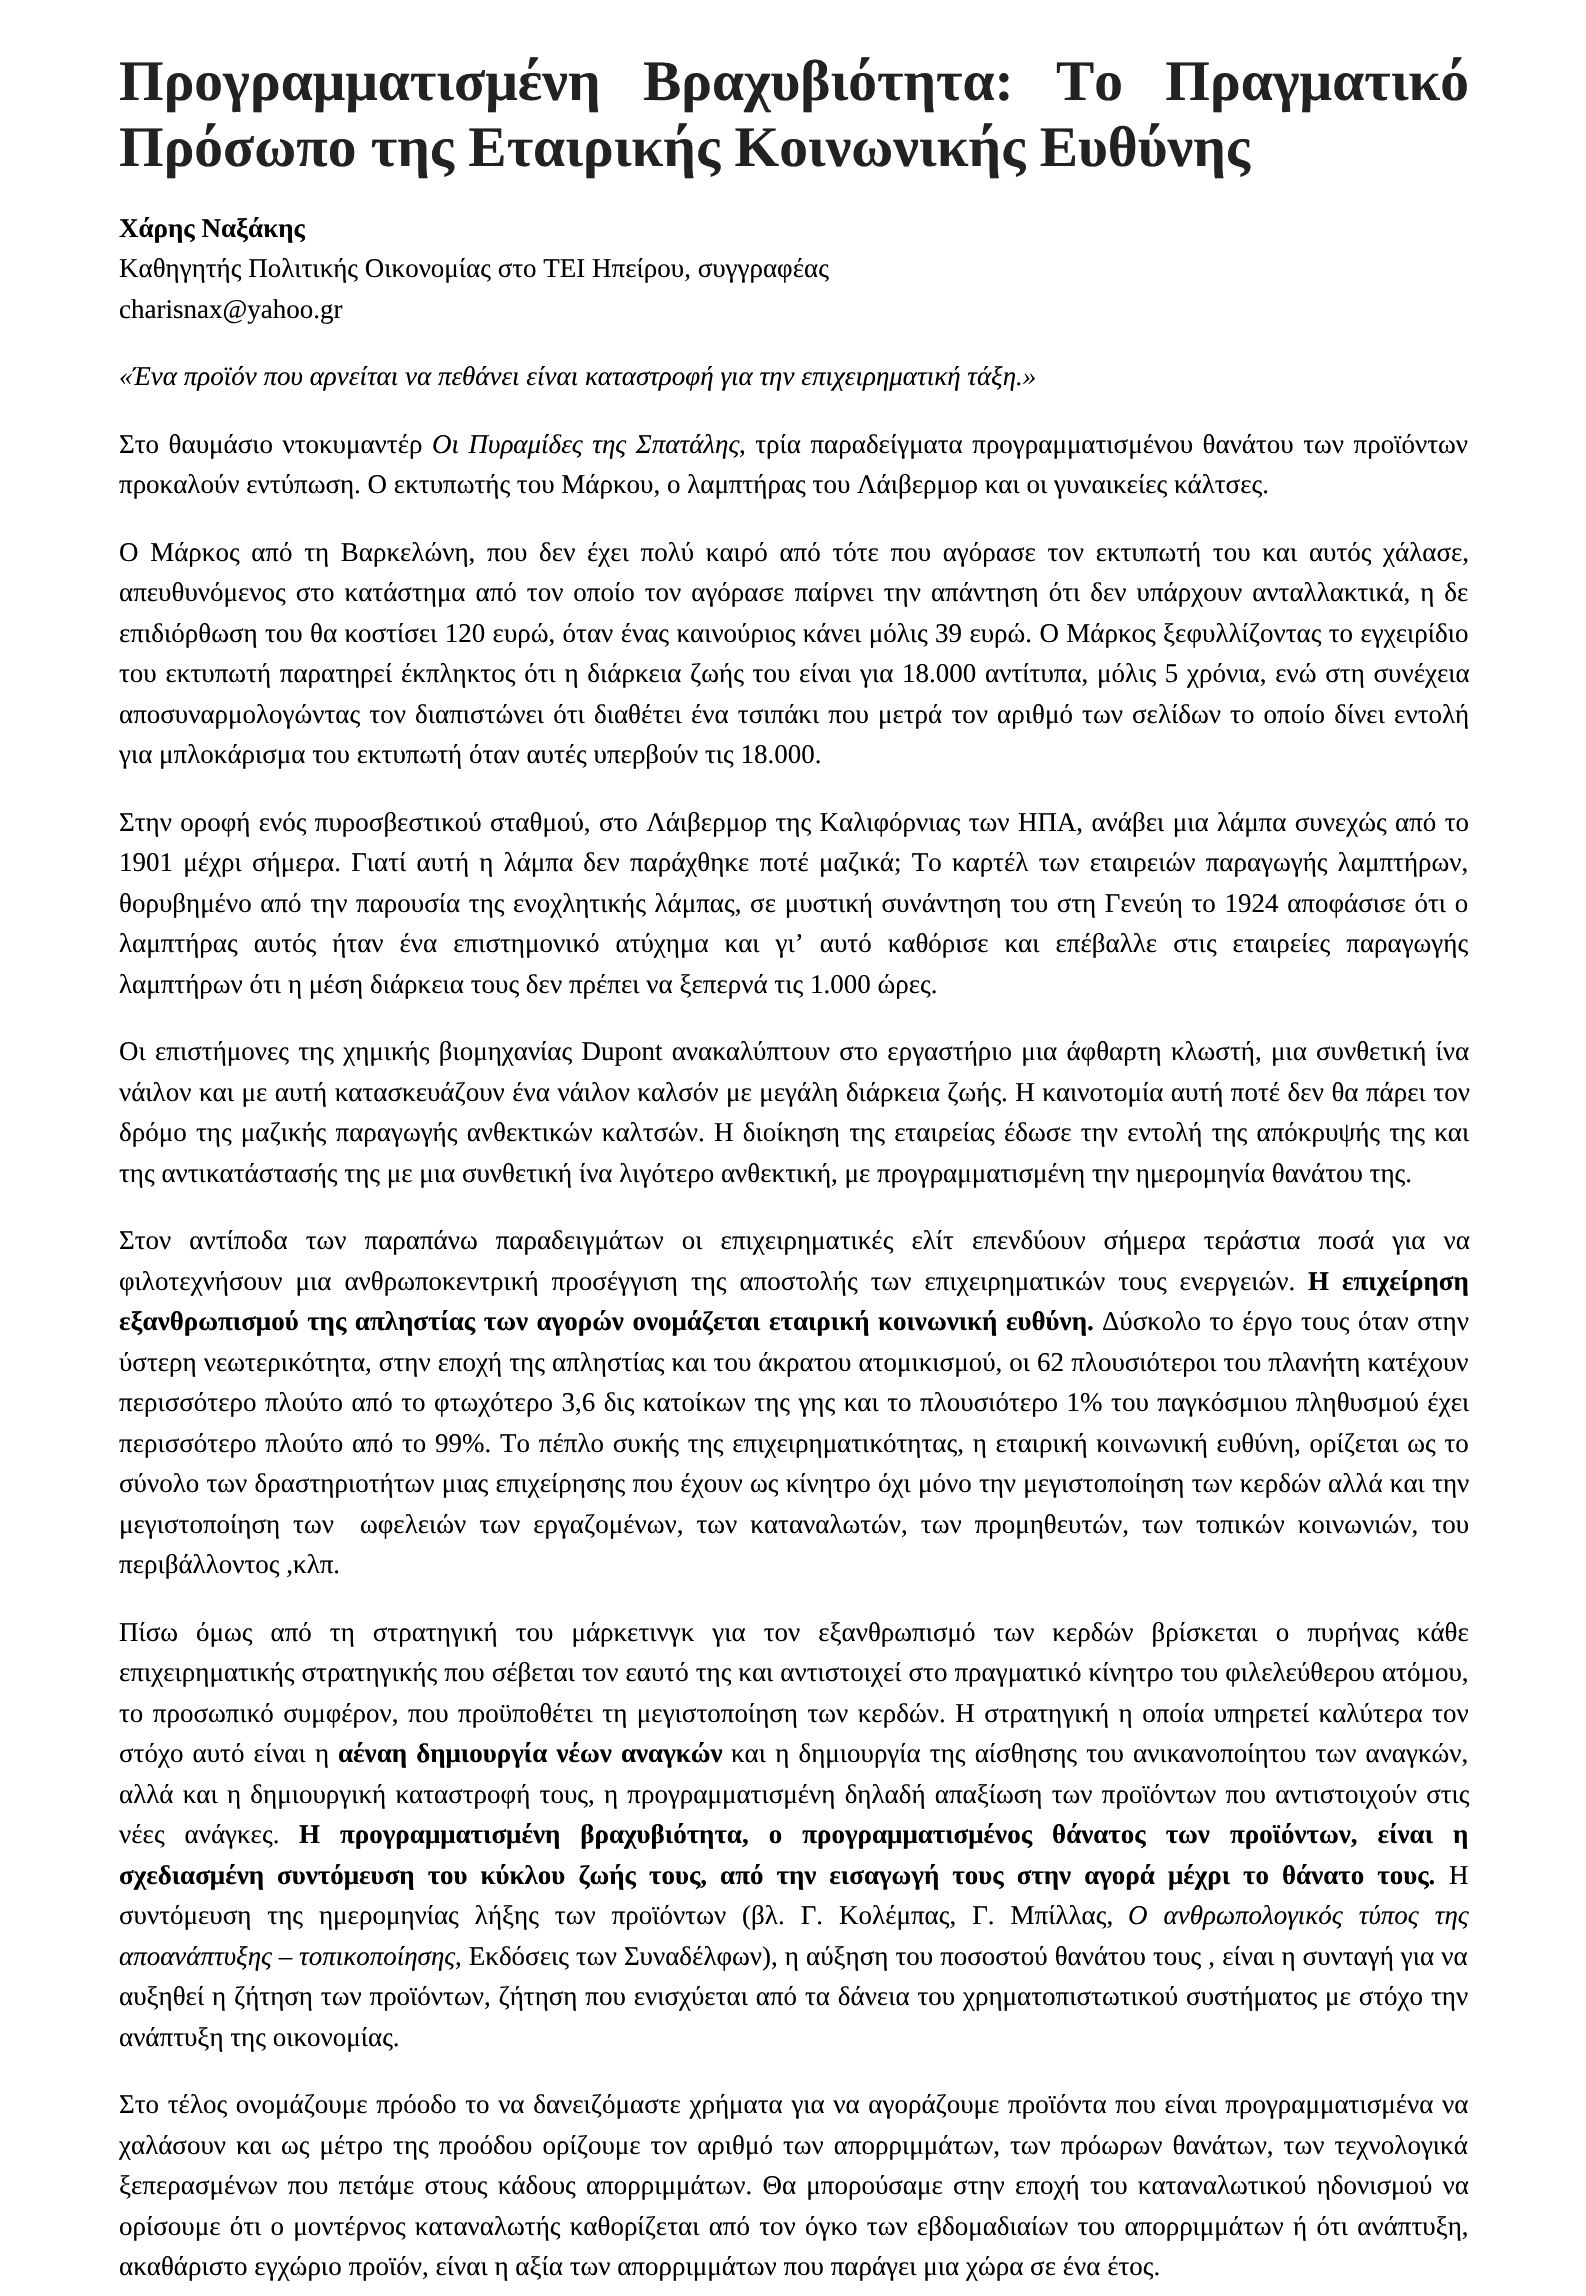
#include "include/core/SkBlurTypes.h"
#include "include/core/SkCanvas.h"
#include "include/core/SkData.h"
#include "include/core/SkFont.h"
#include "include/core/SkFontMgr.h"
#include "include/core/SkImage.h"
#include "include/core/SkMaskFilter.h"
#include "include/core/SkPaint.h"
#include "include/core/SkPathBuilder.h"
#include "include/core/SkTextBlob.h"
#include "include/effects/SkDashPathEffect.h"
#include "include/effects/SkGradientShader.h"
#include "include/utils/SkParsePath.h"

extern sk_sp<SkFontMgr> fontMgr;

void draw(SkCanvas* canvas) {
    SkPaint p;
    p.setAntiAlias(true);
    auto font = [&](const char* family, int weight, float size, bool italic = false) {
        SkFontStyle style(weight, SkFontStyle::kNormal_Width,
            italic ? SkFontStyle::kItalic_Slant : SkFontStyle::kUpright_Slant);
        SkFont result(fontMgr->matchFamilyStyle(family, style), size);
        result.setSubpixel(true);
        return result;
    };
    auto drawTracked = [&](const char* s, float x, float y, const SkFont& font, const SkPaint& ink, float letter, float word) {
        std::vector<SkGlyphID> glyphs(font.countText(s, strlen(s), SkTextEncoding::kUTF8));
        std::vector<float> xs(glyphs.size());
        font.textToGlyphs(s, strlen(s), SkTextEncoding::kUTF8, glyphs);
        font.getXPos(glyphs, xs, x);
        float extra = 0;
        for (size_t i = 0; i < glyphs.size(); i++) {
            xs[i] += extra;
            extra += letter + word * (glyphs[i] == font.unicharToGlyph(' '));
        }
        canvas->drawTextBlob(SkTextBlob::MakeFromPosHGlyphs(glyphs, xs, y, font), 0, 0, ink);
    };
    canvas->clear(0xFFFFFFFF);
    auto font1 = font("Liberation Serif", 700, 57.4f);
    p.setColor(0xFF222222);
    drawTracked("Προγραμματισμένη Βραχυβιότητα: Το Πραγματικό", 119, 100, font1, p, 0, 28);
    canvas->drawString("Πρόσωπο της Εταιρικής Κοινωνικής Ευθύνης", 119, 166, font1, p);
    auto font2 = font("Liberation Serif", 700, 27);
    p.setColor(0xFF000000);
    canvas->drawString("Χάρης Ναξάκης", 119, 237, font2, p);
    auto font3 = font("Liberation Serif", 400, 27);
    canvas->drawString("Καθηγητής Πολιτικής Οικονομίας στο ΤΕΙ Ηπείρου, συγγραφέας", 119, 277, font3, p);
    canvas->drawString("charisnax@yahoo.gr", 119, 318, font3, p);
    auto font4 = font("Liberation Serif", 400, 27, true);
    canvas->drawString("«Ένα προϊόν που αρνείται να πεθάνει είναι καταστροφή για την επιχειρηματική τάξη.»", 119, 385, font4, p);
    drawTracked("Στο θαυμάσιο ντοκυμαντέρ", 119, 453, font3, p, 0, 2.75f);
    drawTracked("Οι Πυραμίδες της Σπατάλης", 432, 453, font4, p, 0, 2.75f);
    drawTracked(", τρία παραδείγματα προγραμματισμένου θανάτου των προϊόντων", 739, 453, font3, p, 0, 2.75f);
    canvas->drawString("προκαλούν εντύπωση. Ο εκτυπωτής του Μάρκου, ο λαμπτήρας του Λάιβερμορ και οι γυναικείες κάλτσες.", 119, 493, font3, p);
    drawTracked("Ο Μάρκος από τη Βαρκελώνη, που δεν έχει πολύ καιρό από τότε που αγόρασε τον εκτυπωτή του και αυτός χάλασε,", 119, 561, font3, p, 0, 4.9f);
    drawTracked("απευθυνόμενος στο κατάστημα από τον οποίο τον αγόρασε παίρνει την απάντηση ότι δεν υπάρχουν ανταλλακτικά, η δε", 119, 601, font3, p, 0, 3.25f);
    drawTracked("επιδιόρθωση του θα κοστίσει 120 ευρώ, όταν ένας καινούριος κάνει μόλις 39 ευρώ. Ο Μάρκος ξεφυλλίζοντας το εγχειρίδιο", 119, 642, font3, p, 0, 0.6f);
    drawTracked("του εκτυπωτή παρατηρεί έκπληκτος ότι η διάρκεια ζωής του είναι για 18.000 αντίτυπα, μόλις 5 χρόνια, ενώ στη συνέχεια", 119, 682, font3, p, 0, 2);
    drawTracked("αποσυναρμολογώντας τον διαπιστώνει ότι διαθέτει ένα τσιπάκι που μετρά τον αριθμό των σελίδων το οποίο δίνει εντολή", 119, 723, font3, p, 0, 2.4f);
    canvas->drawString("για μπλοκάρισμα του εκτυπωτή όταν αυτές υπερβούν τις 18.000.", 119, 763, font3, p);
    drawTracked("Στην οροφή ενός πυροσβεστικού σταθμού, στο Λάιβερμορ της Καλιφόρνιας των ΗΠΑ, ανάβει μια λάμπα συνεχώς από το", 119, 831, font3, p, 0, 1.6f);
    drawTracked("1901 μέχρι σήμερα. Γιατί αυτή η λάμπα δεν παράχθηκε ποτέ μαζικά; Το καρτέλ των εταιρειών παραγωγής λαμπτήρων,", 119, 871, font3, p, 0, 3.5f);
    drawTracked("θορυβημένο από την παρουσία της ενοχλητικής λάμπας, σε μυστική συνάντηση του στη Γενεύη το 1924 αποφάσισε ότι ο", 119, 912, font3, p, 0, 1.9f);
    drawTracked("λαμπτήρας αυτός ήταν ένα επιστημονικό ατύχημα και γι’ αυτό καθόρισε και επέβαλλε στις εταιρείες παραγωγής", 119, 952, font3, p, 0, 9.25f);
    canvas->drawString("λαμπτήρων ότι η μέση διάρκεια τους δεν πρέπει να ξεπερνά τις 1.000 ώρες.", 119, 993, font3, p);
    drawTracked("Οι επιστήμονες της χημικής βιομηχανίας Dupont ανακαλύπτουν στο εργαστήριο μια άφθαρτη κλωστή, μια συνθετική ίνα", 119, 1060, font3, p, 0, 2.5f);
    drawTracked("νάιλον και με αυτή κατασκευάζουν ένα νάιλον καλσόν με μεγάλη διάρκεια ζωής. Η καινοτομία αυτή ποτέ δεν θα πάρει τον", 119, 1101, font3, p, 0, 0.75f);
    drawTracked("δρόμο της μαζικής παραγωγής ανθεκτικών καλτσών. Η διοίκηση της εταιρείας έδωσε την εντολή της απόκρυψής της και", 119, 1141, font3, p, 0, 2.5f);
    canvas->drawString("της αντικατάστασής της με μια συνθετική ίνα λιγότερο ανθεκτική, με προγραμματισμένη την ημερομηνία θανάτου της.", 119, 1182, font3, p);
    drawTracked("Στον αντίποδα των παραπάνω παραδειγμάτων οι επιχειρηματικές ελίτ επενδύουν σήμερα τεράστια ποσά για να", 119, 1249, font3, p, 0, 11.25f);
    drawTracked("φιλοτεχνήσουν μια ανθρωποκεντρική προσέγγιση της αποστολής των επιχειρηματικών τους ενεργειών.", 119, 1290, font3, p, 0, 6.25f);
    drawTracked("Η επιχείρηση", 1308, 1290, font2, p, 0, 6.25f);
    drawTracked("εξανθρωπισμού της απληστίας των αγορών ονομάζεται εταιρική κοινωνική ευθύνη.", 119, 1330, font2, p, 0, 1.75f);
    drawTracked("Δύσκολο το έργο τους όταν στην", 1102, 1330, font3, p, 0, 1.75f);
    drawTracked("ύστερη νεωτερικότητα, στην εποχή της απληστίας και του άκρατου ατομικισμού, οι 62 πλουσιότεροι του πλανήτη κατέχουν", 119, 1371, font3, p, 0, 0.3f);
    drawTracked("περισσότερο πλούτο από το φτωχότερο 3,6 δις κατοίκων της γης και το πλουσιότερο 1% του παγκόσμιου πληθυσμού έχει", 119, 1411, font3, p, 0, 1.75f);
    drawTracked("περισσότερο πλούτο από το 99%. Το πέπλο συκής της επιχειρηματικότητας, η εταιρική κοινωνική ευθύνη, ορίζεται ως το", 119, 1452, font3, p, 0, 2);
    drawTracked("σύνολο των δραστηριοτήτων μιας επιχείρησης που έχουν ως κίνητρο όχι μόνο την μεγιστοποίηση των κερδών αλλά και την", 119, 1492, font3, p, 0, 0.5f);
    drawTracked("μεγιστοποίηση των  ωφελειών των εργαζομένων, των καταναλωτών, των προμηθευτών, των τοπικών κοινωνιών, του", 119, 1533, font3, p, 0, 6.25f);
    canvas->drawString("περιβάλλοντος ,κλπ.", 119, 1573, font3, p);
    drawTracked("Πίσω όμως από τη στρατηγική του μάρκετινγκ για τον εξανθρωπισμό των κερδών βρίσκεται ο πυρήνας κάθε", 119, 1641, font3, p, 0, 11.25f);
    drawTracked("επιχειρηματικής στρατηγικής που σέβεται τον εαυτό της και αντιστοιχεί στο πραγματικό κίνητρο του φιλελεύθερου ατόμου,", 119, 1681, font3, p, 0, 0.25f);
    drawTracked("το προσωπικό συμφέρον, που προϋποθέτει τη μεγιστοποίηση των κερδών. Η στρατηγική η οποία υπηρετεί καλύτερα τον", 119, 1722, font3, p, 0, 2.75f);
    drawTracked("στόχο αυτό είναι η", 119, 1762, font3, p, 0, 2.4f);
    drawTracked("αέναη δημιουργία νέων αναγκών", 338, 1762, font2, p, 0, 2.4f);
    drawTracked("και η δημιουργία της αίσθησης του ανικανοποίητου των αναγκών,", 731, 1762, font3, p, 0, 2.4f);
    drawTracked("αλλά και η δημιουργική καταστροφή τους, η προγραμματισμένη δηλαδή απαξίωση των προϊόντων που αντιστοιχούν στις", 119, 1803, font3, p, 0, 2.5f);
    drawTracked("νέες ανάγκες.", 119, 1843, font3, p, 0, 13.25f);
    drawTracked("Η προγραμματισμένη βραχυβιότητα, ο προγραμματισμένος θάνατος των προϊόντων, είναι η", 299, 1843, font2, p, 0, 13.25f);
    drawTracked("σχεδιασμένη συντόμευση του κύκλου ζωής τους, από την εισαγωγή τους στην αγορά μέχρι το θάνατο τους.", 119, 1884, font2, p, 0, 6.25f);
    canvas->drawString("Η", 1449, 1884, font3, p);
    drawTracked("συντόμευση της ημερομηνίας λήξης των προϊόντων (βλ. Γ. Κολέμπας, Γ. Μπίλλας,", 119, 1924, font3, p, 0, 9.25f);
    drawTracked("Ο ανθρωπολογικός τύπος της", 1128, 1924, font4, p, 0, 9.25f);
    canvas->drawString("αποανάπτυξης – τοπικοποίησης", 119, 1965, font4, p);
    drawTracked(", Εκδόσεις των Συναδέλφων), η αύξηση του ποσοστού θανάτου τους , είναι η συνταγή για να", 455, 1965, font3, p, 0, 0.3f);
    drawTracked("αυξηθεί η ζήτηση των προϊόντων, ζήτηση που ενισχύεται από τα δάνεια του χρηματοπιστωτικού συστήματος με στόχο την", 119, 2005, font3, p, 0, 1.1f);
    canvas->drawString("ανάπτυξη της οικονομίας.", 119, 2046, font3, p);
    drawTracked("Στο τέλος ονομάζουμε πρόοδο το να δανειζόμαστε χρήματα για να αγοράζουμε προϊόντα που είναι προγραμματισμένα να", 119, 2113, font3, p, 0, 1.9f);
    drawTracked("χαλάσουν και ως μέτρο της προόδου ορίζουμε τον αριθμό των απορριμμάτων, των πρόωρων θανάτων, των τεχνολογικά", 119, 2154, font3, p, 0, 3.25f);
    drawTracked("ξεπερασμένων που πετάμε στους κάδους απορριμμάτων. Θα μπορούσαμε στην εποχή του καταναλωτικού ηδονισμού να", 119, 2194, font3, p, 0, 3.5f);
    drawTracked("ορίσουμε ότι ο μοντέρνος καταναλωτής καθορίζεται από τον όγκο των εβδομαδιαίων του απορριμμάτων ή ότι ανάπτυξη,", 119, 2235, font3, p, 0, 2.5f);
    canvas->drawString("ακαθάριστο εγχώριο προϊόν, είναι η αξία των απορριμμάτων που παράγει μια χώρα σε ένα έτος.", 119, 2275, font3, p);
}
